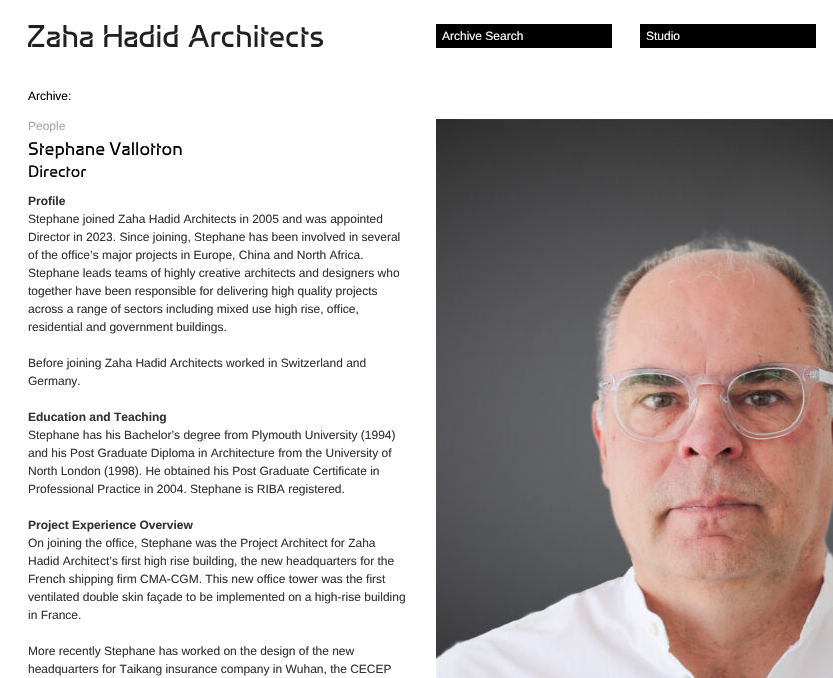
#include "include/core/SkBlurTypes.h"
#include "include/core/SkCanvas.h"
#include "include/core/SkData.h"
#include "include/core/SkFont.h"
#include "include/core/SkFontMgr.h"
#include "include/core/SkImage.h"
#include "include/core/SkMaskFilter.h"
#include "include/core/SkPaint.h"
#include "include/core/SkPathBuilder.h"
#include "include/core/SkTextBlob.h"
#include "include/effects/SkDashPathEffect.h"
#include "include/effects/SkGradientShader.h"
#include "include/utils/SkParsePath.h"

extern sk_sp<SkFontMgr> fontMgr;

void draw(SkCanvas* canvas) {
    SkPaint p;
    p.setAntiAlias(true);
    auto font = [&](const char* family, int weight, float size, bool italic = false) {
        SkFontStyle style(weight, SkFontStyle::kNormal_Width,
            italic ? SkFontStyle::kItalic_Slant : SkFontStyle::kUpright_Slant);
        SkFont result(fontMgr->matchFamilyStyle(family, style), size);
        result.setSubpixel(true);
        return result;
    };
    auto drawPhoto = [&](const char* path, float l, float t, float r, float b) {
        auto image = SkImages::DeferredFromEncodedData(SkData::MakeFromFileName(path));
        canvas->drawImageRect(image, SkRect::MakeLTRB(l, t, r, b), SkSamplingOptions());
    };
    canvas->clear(0xFFFFFFFF);
    drawPhoto("media/1.png", 28, 25, 323, 47);
    p.setColor(0xFF000000);
    canvas->drawRect(SkRect::MakeLTRB(436, 24, 612, 48), p);
    auto font1 = font("Liberation Sans", 400, 12);
    p.setColor(0xFFFFFFFF);
    canvas->drawString("Archive Search", 442, 40, font1, p);
    p.setColor(0xFF000000);
    canvas->drawRect(SkRect::MakeLTRB(640, 24, 816, 48), p);
    p.setColor(0xFFFFFFFF);
    canvas->drawString("Studio", 646, 40, font1, p);
    p.setColor(0xFF000000);
    canvas->drawString("Archive:", 28, 100, font1, p);
    p.setColor(0xFFA7A7A7);
    canvas->drawString("People", 28, 130, font1, p);
    auto font2 = font("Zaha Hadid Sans", 500, 18);
    p.setColor(0xFF000000);
    canvas->drawString("Stephane Vallotton", 28, 155, font2, p);
    auto font3 = font("Zaha Hadid Sans", 500, 16);
    canvas->drawString("Director", 28, 177, font3, p);
    auto font4 = font("Liberation Sans", 700, 12);
    p.setColor(0xFF333333);
    canvas->drawString("Profile", 28, 205, font4, p);
    {
        const struct { const char* s; float x, y; } items[] = {
            {"Stephane joined Zaha Hadid Architects in 2005 and was appointed", 28, 223},
            {"Director in 2023. Since joining, Stephane has been involved in several", 28, 241},
            {"of the office’s major projects in Europe, China and North Africa.", 28, 259},
            {"Stephane leads teams of highly creative architects and designers who", 28, 277},
            {"together have been responsible for delivering high quality projects", 28, 295},
            {"across a range of sectors including mixed use high rise, office,", 28, 313},
            {"residential and government buildings.", 28, 331},
            {"Before joining Zaha Hadid Architects worked in Switzerland and", 28, 367},
            {"Germany.", 28, 385},
        };
        for (auto [s, x, y] : items) {
            canvas->drawString(s, x, y, font1, p);
        }
    }
    canvas->drawString("Education and Teaching", 28, 421, font4, p);
    {
        const struct { const char* s; float x, y; } items[] = {
            {"Stephane has his Bachelor’s degree from Plymouth University (1994)", 28, 439},
            {"and his Post Graduate Diploma in Architecture from the University of", 28, 457},
            {"North London (1998). He obtained his Post Graduate Certificate in", 28, 475},
            {"Professional Practice in 2004. Stephane is RIBA registered.", 28, 493},
        };
        for (auto [s, x, y] : items) {
            canvas->drawString(s, x, y, font1, p);
        }
    }
    canvas->drawString("Project Experience Overview", 28, 529, font4, p);
    {
        const struct { const char* s; float x, y; } items[] = {
            {"On joining the office, Stephane was the Project Architect for Zaha", 28, 547},
            {"Hadid Architect’s first high rise building, the new headquarters for the", 28, 565},
            {"French shipping firm CMA-CGM. This new office tower was the first", 28, 583},
            {"ventilated double skin façade to be implemented on a high-rise building", 28, 601},
            {"in France.", 28, 619},
            {"More recently Stephane has worked on the design of the new", 28, 655},
            {"headquarters for Taikang insurance company in Wuhan, the CECEP", 28, 673},
        };
        for (auto [s, x, y] : items) {
            canvas->drawString(s, x, y, font1, p);
        }
    }
    drawPhoto("media/2.png", 436, 119, 833, 678);
}
